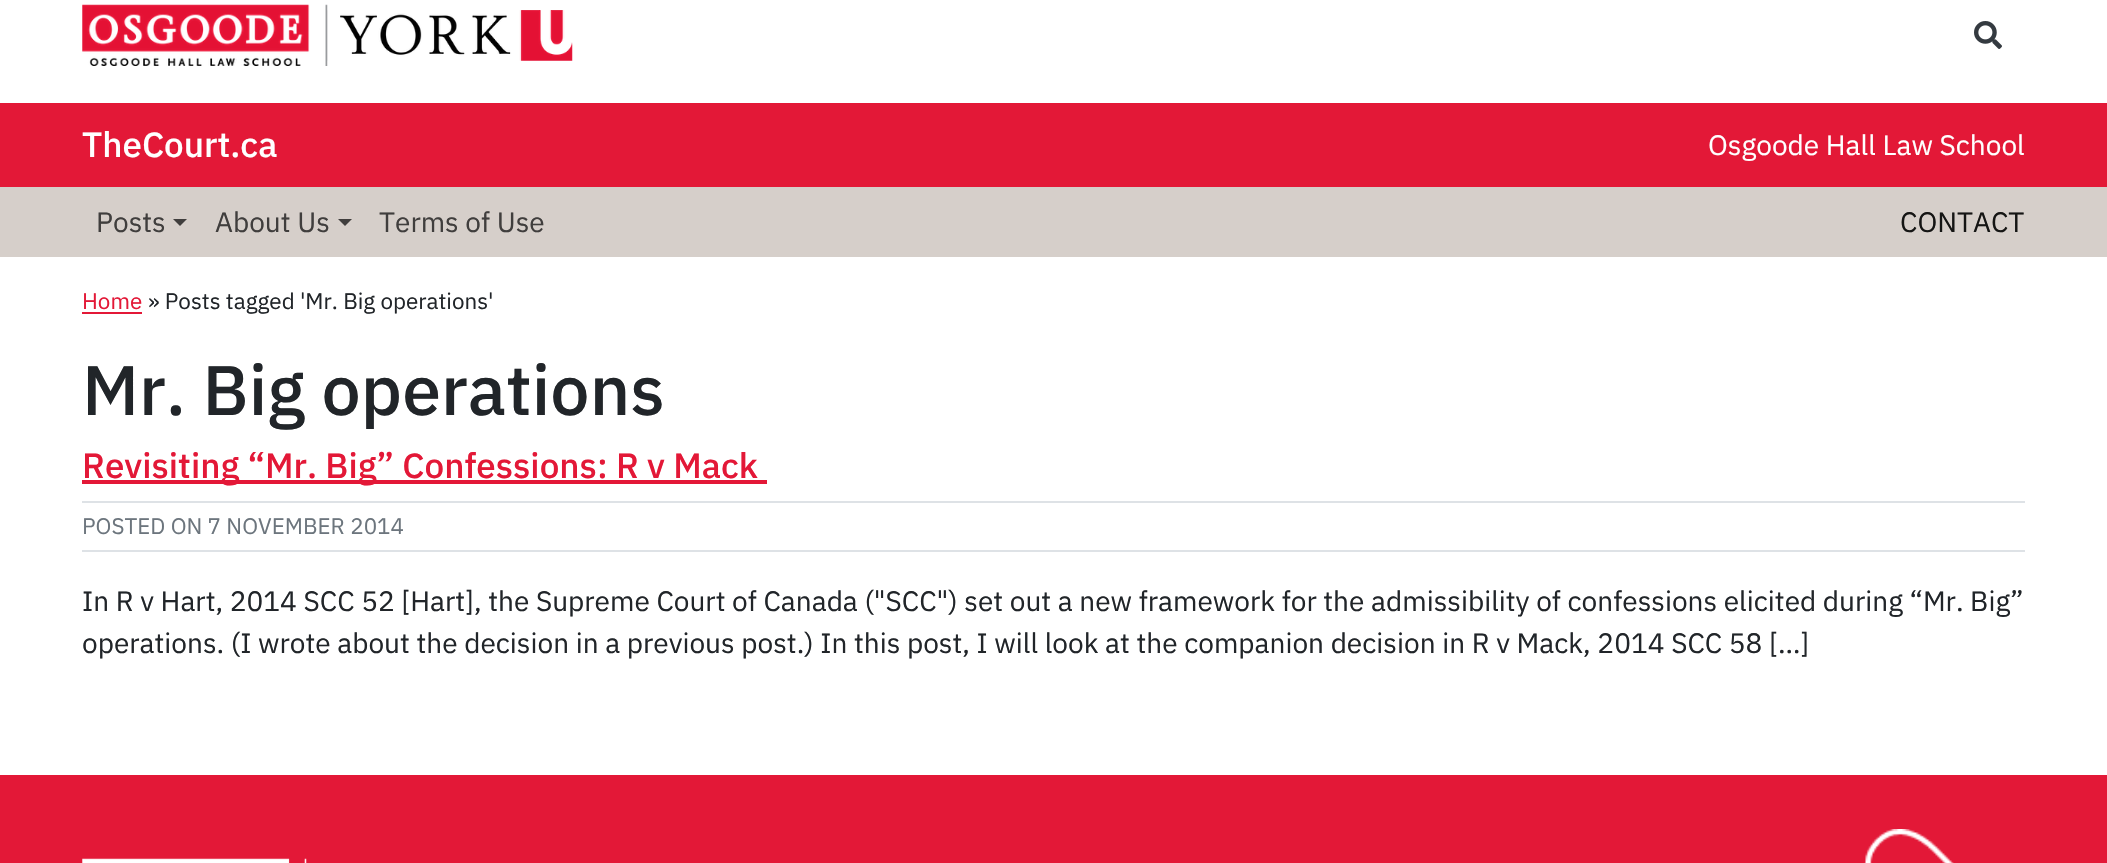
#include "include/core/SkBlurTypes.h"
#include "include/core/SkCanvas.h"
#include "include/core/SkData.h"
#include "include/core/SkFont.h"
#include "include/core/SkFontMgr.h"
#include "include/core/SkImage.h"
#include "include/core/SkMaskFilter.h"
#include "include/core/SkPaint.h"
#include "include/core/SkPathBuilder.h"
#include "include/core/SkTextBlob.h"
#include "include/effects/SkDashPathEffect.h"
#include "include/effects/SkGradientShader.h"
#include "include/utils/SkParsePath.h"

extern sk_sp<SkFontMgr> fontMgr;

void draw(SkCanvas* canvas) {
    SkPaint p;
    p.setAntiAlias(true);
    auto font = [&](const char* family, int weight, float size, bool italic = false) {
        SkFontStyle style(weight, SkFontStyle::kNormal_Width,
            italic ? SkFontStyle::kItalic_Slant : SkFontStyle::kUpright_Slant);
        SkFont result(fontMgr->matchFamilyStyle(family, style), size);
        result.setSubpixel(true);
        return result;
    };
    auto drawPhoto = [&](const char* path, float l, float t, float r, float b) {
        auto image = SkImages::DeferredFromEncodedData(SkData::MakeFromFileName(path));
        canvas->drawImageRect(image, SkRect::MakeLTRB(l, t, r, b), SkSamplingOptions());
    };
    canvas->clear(0xFFFFFFFF);
    drawPhoto("media/1.png", 82, 4, 328, 66);
    drawPhoto("media/2.png", 327, 10, 573, 61);
    drawPhoto("media/3.png", 1974, 21, 2002, 49);
    p.setColor(0xFFE31837);
    canvas->drawRect(SkRect::MakeLTRB(0, 103, 2107, 187), p);
    auto font1 = font("IBM Plex Sans", 500, 35);
    p.setColor(0xFFFFFFFF);
    canvas->drawString("TheCourt.ca", 82, 157, font1, p);
    auto font2 = font("IBM Plex Sans", 400, 28);
    canvas->drawString("Osgoode Hall Law School", 1708, 155, font2, p);
    p.setColor(0xFFD6CFCA);
    canvas->drawRect(SkRect::MakeLTRB(0, 187, 2107, 257), p);
    p.setColor(0xFF403E3D);
    canvas->drawString("Posts", 96, 232, font2, p);
    canvas->drawPath(SkPathBuilder().moveTo(173, 219).lineTo(187, 219).lineTo(180, 226).close().detach(), p);
    canvas->drawString("About Us", 215, 232, font2, p);
    canvas->drawPath(SkPathBuilder().moveTo(338, 219).lineTo(352, 219).lineTo(345, 226).close().detach(), p);
    canvas->drawString("Terms of Use", 379, 232, font2, p);
    p.setColor(0xFF151514);
    canvas->drawString("CONTACT", 1900, 232, font2, p);
    auto font3 = font("IBM Plex Sans", 400, 22.4f);
    p.setColor(0xFFE31837);
    canvas->drawString("Home", 82, 309, font3, p);
    canvas->drawRect(SkRect::MakeLTRB(82, 312, 142, 314), p);
    p.setColor(0xFF212529);
    canvas->drawString("» Posts tagged 'Mr. Big operations'", 148, 309, font3, p);
    auto font4 = font("IBM Plex Sans", 500, 70);
    canvas->drawString("Mr. Big operations", 82, 415, font4, p);
    p.setColor(0xFFE31837);
    canvas->drawRect(SkRect::MakeLTRB(82, 480, 767, 484), p);
    canvas->drawString("Revisiting “Mr. Big” Confessions: R v Mack", 82, 478, font1, p);
    p.setColor(0xFFDEE2E6);
    canvas->drawRect(SkRect::MakeLTRB(82, 501, 2025, 503), p);
    canvas->drawRect(SkRect::MakeLTRB(82, 550, 2025, 552), p);
    p.setColor(0xFF6C757D);
    canvas->drawString("POSTED ON 7 NOVEMBER 2014", 82, 534, font3, p);
    p.setColor(0xFF212529);
    canvas->drawString("In R v Hart, 2014 SCC 52 [Hart], the Supreme Court of Canada (\"SCC\") set out a new framework for the admissibility of confessions elicited during “Mr. Big”", 82, 611, font2, p);
    canvas->drawString("operations. (I wrote about the decision in a previous post.) In this post, I will look at the companion decision in R v Mack, 2014 SCC 58 […]", 82, 653, font2, p);
    p.setColor(0xFFE31837);
    canvas->drawRect(SkRect::MakeLTRB(0, 775, 2107, 863), p);
    drawPhoto("media/4.png", 1864, 829, 1954, 863);
    drawPhoto("media/5.png", 82, 858, 307, 863);
}
